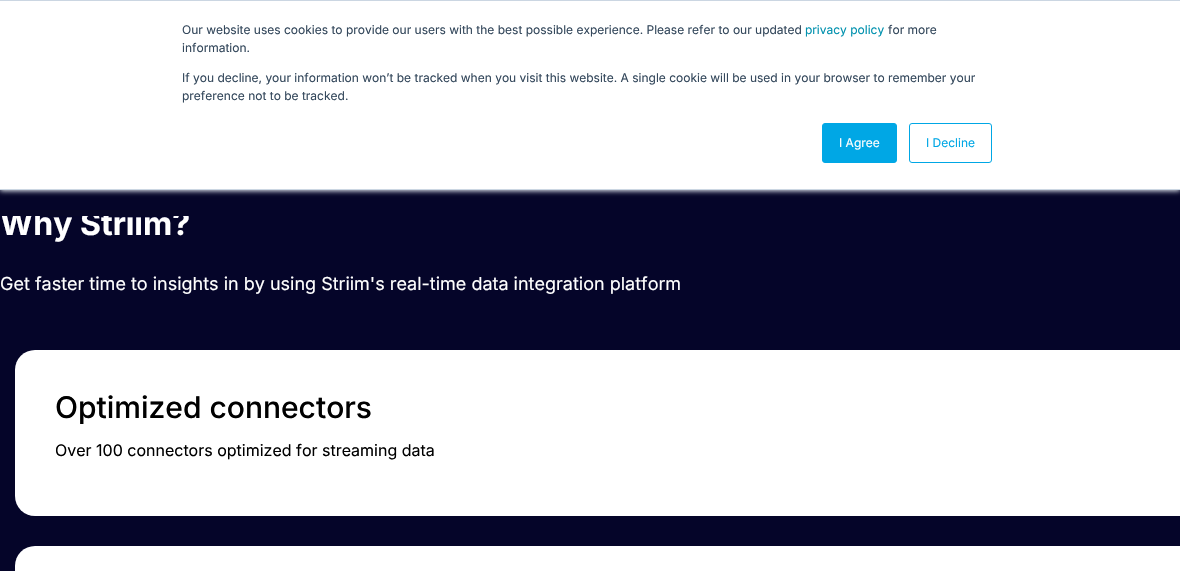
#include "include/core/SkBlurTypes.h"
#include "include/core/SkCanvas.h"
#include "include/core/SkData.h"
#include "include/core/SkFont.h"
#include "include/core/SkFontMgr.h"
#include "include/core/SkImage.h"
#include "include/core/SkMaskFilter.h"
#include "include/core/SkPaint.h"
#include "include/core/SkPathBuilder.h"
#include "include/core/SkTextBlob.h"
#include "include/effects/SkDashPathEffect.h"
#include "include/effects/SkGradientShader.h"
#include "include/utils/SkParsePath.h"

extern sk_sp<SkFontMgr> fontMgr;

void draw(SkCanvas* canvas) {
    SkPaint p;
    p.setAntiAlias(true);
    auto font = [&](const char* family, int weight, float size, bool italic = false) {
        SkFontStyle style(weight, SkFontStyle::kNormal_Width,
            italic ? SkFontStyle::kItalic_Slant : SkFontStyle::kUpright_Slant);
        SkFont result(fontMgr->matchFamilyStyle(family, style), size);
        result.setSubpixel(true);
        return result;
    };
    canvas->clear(0xFF050529);
    p.setColor(0xFFEAF0F6);
    p.setMaskFilter(SkMaskFilter::MakeBlur(kNormal_SkBlurStyle, 2.5f));
    canvas->drawRect(SkRect::MakeLTRB(0, 1, 1180, 191), p);
    p.setMaskFilter(nullptr);
    {
        const struct { float l, t, r, b; SkColor color; } items[] = {
            {0, 1, 1180, 189, 0xFFFFFFFF},
            {0, 0, 1180, 1, 0xFFCBD6E2},
            {0, 189, 1180, 190, 0xFFCBD6E2},
        };
        for (auto [l, t, r, b, color] : items) {
            p.setColor(color);
            canvas->drawRect(SkRect::MakeLTRB(l, t, r, b), p);
        }
    }
    auto font1 = font("Inter", 400, 12);
    p.setColor(0xFF33475B);
    canvas->drawString("Our website uses cookies to provide our users with the best possible experience. Please refer to our updated", 182, 34, font1, p);
    p.setColor(0xFF0091AE);
    canvas->drawString("privacy policy", 805, 34, font1, p);
    p.setColor(0xFF33475B);
    {
        const struct { const char* s; float x, y; } items[] = {
            {"for more", 888, 34},
            {"information.", 182, 52},
            {"If you decline, your information won’t be tracked when you visit this website. A single cookie will be used in your browser to remember your", 182, 82},
            {"preference not to be tracked.", 182, 100},
        };
        for (auto [s, x, y] : items) {
            canvas->drawString(s, x, y, font1, p);
        }
    }
    p.setColor(0xFF00A7E5);
    canvas->drawRoundRect(SkRect::MakeLTRB(822.5f, 123.5f, 896.5f, 162.5f), 2.5f, 2.5f, p);
    p.setStyle(SkPaint::kStroke_Style);
    p.setStrokeWidth(1);
    canvas->drawRoundRect(SkRect::MakeLTRB(822.5f, 123.5f, 896.5f, 162.5f), 2.5f, 2.5f, p);
    p.setStyle(SkPaint::kFill_Style);
    p.setColor(0xFFFFFFFF);
    canvas->drawString("I Agree", 839, 147, font1, p);
    p.setStyle(SkPaint::kStroke_Style);
    p.setColor(0xFF00A7E5);
    canvas->drawRoundRect(SkRect::MakeLTRB(909.5f, 123.5f, 991.5f, 162.5f), 2.5f, 2.5f, p);
    p.setStyle(SkPaint::kFill_Style);
    canvas->drawString("I Decline", 926, 147, font1, p);
    auto font2 = font("Inter", 700, 32);
    p.setColor(0xFFFFFFFF);
    canvas->drawString("Why Striim?", 0, 235, font2, p);
    auto font3 = font("Inter", 400, 18);
    canvas->drawString("Get faster time to insights in by using Striim's real-time data integration platform", 0, 290, font3, p);
    canvas->drawRoundRect(SkRect::MakeLTRB(15, 350, 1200, 516), 20, 20, p);
    auto font4 = font("Inter", 500, 30);
    p.setColor(0xFF000000);
    canvas->drawString("Optimized connectors", 55, 418, font4, p);
    auto font5 = font("Inter", 400, 16);
    canvas->drawString("Over 100 connectors optimized for streaming data", 55, 456, font5, p);
    p.setColor(0xFFFFFFFF);
    canvas->drawRoundRect(SkRect::MakeLTRB(15, 546, 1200, 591), 20, 20, p);
    p.setColor(0xFF070727);
    canvas->drawRect(SkRect::MakeLTRB(0, 210, 189, 216), p);
}
